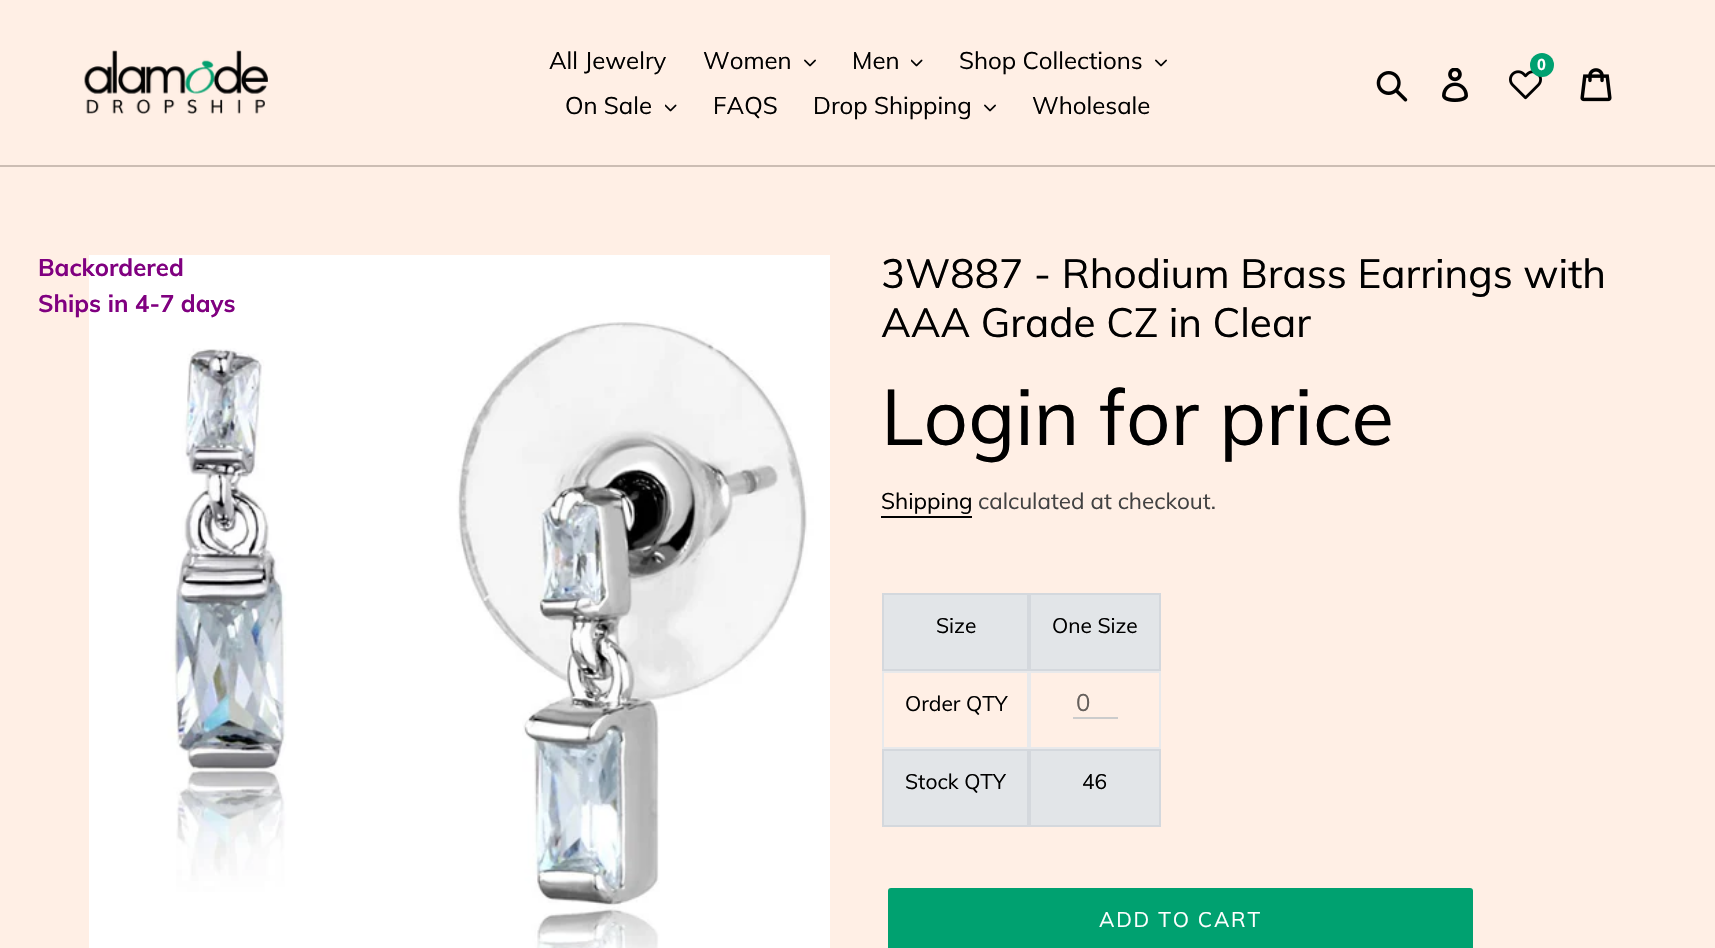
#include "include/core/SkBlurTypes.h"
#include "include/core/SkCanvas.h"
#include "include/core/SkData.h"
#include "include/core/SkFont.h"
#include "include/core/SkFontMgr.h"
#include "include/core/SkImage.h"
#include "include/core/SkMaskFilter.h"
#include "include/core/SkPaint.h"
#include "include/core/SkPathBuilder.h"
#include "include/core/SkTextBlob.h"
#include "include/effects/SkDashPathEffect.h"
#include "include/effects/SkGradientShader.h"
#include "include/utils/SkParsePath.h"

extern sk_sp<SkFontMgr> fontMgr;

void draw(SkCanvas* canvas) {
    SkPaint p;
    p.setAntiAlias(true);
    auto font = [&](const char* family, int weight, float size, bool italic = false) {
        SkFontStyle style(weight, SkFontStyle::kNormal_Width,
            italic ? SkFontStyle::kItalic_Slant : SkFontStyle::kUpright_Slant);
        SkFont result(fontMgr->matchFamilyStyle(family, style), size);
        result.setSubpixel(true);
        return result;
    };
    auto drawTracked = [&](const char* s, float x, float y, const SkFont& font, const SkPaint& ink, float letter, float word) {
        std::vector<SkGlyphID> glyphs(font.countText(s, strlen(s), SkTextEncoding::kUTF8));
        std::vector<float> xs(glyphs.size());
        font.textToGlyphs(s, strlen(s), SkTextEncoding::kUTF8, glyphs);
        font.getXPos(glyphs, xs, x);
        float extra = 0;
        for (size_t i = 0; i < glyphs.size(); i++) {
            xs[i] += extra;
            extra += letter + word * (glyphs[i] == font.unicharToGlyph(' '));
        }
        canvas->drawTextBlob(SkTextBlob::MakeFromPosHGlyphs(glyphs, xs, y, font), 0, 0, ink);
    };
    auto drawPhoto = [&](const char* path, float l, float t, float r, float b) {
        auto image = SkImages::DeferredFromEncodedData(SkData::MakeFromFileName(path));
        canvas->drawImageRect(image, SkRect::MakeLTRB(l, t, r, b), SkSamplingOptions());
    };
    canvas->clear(0xFFFFEFE5);
    p.setColor(0xFFCCBDB3);
    canvas->drawRect(SkRect::MakeLTRB(0, 165, 1715, 167), p);
    drawPhoto("media/1.png", 84, 50, 268, 114);
    auto font1 = font("Muli", 400, 24);
    p.setColor(0xFF000000);
    canvas->drawString("All Jewelry", 549, 69, font1, p);
    canvas->drawString("Women", 703, 69, font1, p);
    drawPhoto("media/2.png", 804, 59, 816, 67);
    canvas->drawString("Men", 852, 69, font1, p);
    drawPhoto("media/3.png", 911, 59, 923, 67);
    canvas->drawString("Shop Collections", 959, 69, font1, p);
    drawPhoto("media/2.png", 1155, 59, 1167, 67);
    canvas->drawString("On Sale", 565, 114, font1, p);
    drawPhoto("media/3.png", 665, 104, 677, 112);
    canvas->drawString("FAQS", 713, 114, font1, p);
    canvas->drawString("Drop Shipping", 813, 114, font1, p);
    drawPhoto("media/2.png", 984, 104, 996, 112);
    canvas->drawString("Wholesale", 1032, 114, font1, p);
    drawPhoto("media/4.png", 1509, 70, 1542, 100);
    p.setColor(0xFF00A170);
    canvas->drawCircle(1542, 65, 12, p);
    auto font2 = font("Liberation Sans", 700, 16);
    p.setColor(0xFFFFFFFF);
    canvas->drawString("0", 1537, 70, font2, p);
    drawPhoto("media/5.png", 1376, 71, 1408, 102);
    drawPhoto("media/6.png", 1442, 68, 1468, 102);
    drawPhoto("media/7.png", 1580, 68, 1612, 102);
    drawPhoto("media/8.png", 89, 255, 830, 948);
    auto font3 = font("Muli", 700, 24);
    p.setColor(0xFF800080);
    canvas->drawString("Backordered", 38, 276, font3, p);
    canvas->drawString("Ships in 4-7 days", 38, 312, font3, p);
    auto font4 = font("Muli", 400, 40.5f);
    p.setColor(0xFF000000);
    canvas->drawString("3W887 - Rhodium Brass Earrings with", 881, 288, font4, p);
    canvas->drawString("AAA Grade CZ in Clear", 881, 337, font4, p);
    auto font5 = font("Muli", 400, 78);
    canvas->drawString("Login for price", 881, 445, font5, p);
    auto font6 = font("Muli", 400, 22.5f);
    canvas->drawString("Shipping", 881, 509, font6, p);
    canvas->drawRect(SkRect::MakeLTRB(881, 516, 972, 518), p);
    p.setColor(0xFF424242);
    canvas->drawString("calculated at checkout.", 978, 509, font6, p);
    p.setColor(0xFFE2E5E8);
    canvas->drawRect(SkRect::MakeLTRB(883, 594, 1028, 670), p);
    p.setStyle(SkPaint::kStroke_Style);
    p.setStrokeWidth(2);
    p.setColor(0xFFD4D8DD);
    canvas->drawRect(SkRect::MakeLTRB(883, 594, 1028, 670), p);
    auto font7 = font("Muli", 400, 21);
    p.setStyle(SkPaint::kFill_Style);
    p.setColor(0xFF000000);
    canvas->drawString("Size", 936, 633, font7, p);
    p.setStyle(SkPaint::kStroke_Style);
    p.setColor(0xFFE8E9EB);
    canvas->drawRect(SkRect::MakeLTRB(883, 672, 1028, 748), p);
    p.setStyle(SkPaint::kFill_Style);
    p.setColor(0xFF000000);
    canvas->drawString("Order QTY", 905, 711, font7, p);
    p.setColor(0xFFE2E5E8);
    canvas->drawRect(SkRect::MakeLTRB(883, 750, 1028, 826), p);
    p.setStyle(SkPaint::kStroke_Style);
    p.setColor(0xFFD4D8DD);
    canvas->drawRect(SkRect::MakeLTRB(883, 750, 1028, 826), p);
    p.setStyle(SkPaint::kFill_Style);
    p.setColor(0xFF000000);
    canvas->drawString("Stock QTY", 905, 789, font7, p);
    p.setColor(0xFFE2E5E8);
    canvas->drawRect(SkRect::MakeLTRB(1030, 594, 1160, 670), p);
    p.setStyle(SkPaint::kStroke_Style);
    p.setColor(0xFFD4D8DD);
    canvas->drawRect(SkRect::MakeLTRB(1030, 594, 1160, 670), p);
    p.setStyle(SkPaint::kFill_Style);
    p.setColor(0xFF000000);
    canvas->drawString("One Size", 1052, 633, font7, p);
    p.setStyle(SkPaint::kStroke_Style);
    p.setColor(0xFFE8E9EB);
    canvas->drawRect(SkRect::MakeLTRB(1030, 672, 1160, 748), p);
    p.setStyle(SkPaint::kFill_Style);
    p.setColor(0xFFCCCCCC);
    canvas->drawRect(SkRect::MakeLTRB(1073, 717, 1118, 719), p);
    p.setColor(0xFF66605C);
    canvas->drawString("0", 1076, 711, font1, p);
    p.setColor(0xFFE2E5E8);
    canvas->drawRect(SkRect::MakeLTRB(1030, 750, 1160, 826), p);
    p.setStyle(SkPaint::kStroke_Style);
    p.setColor(0xFFD4D8DD);
    canvas->drawRect(SkRect::MakeLTRB(1030, 750, 1160, 826), p);
    p.setStyle(SkPaint::kFill_Style);
    p.setColor(0xFF000000);
    canvas->drawString("46", 1082, 789, font7, p);
    p.setColor(0xFF00A170);
    canvas->drawRoundRect(SkRect::MakeLTRB(888, 888, 1473, 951), 3, 3, p);
    p.setColor(0xFFFFFFFF);
    drawTracked("ADD TO CART", 1099, 927, font7, p, 1.75f, 0);
}
